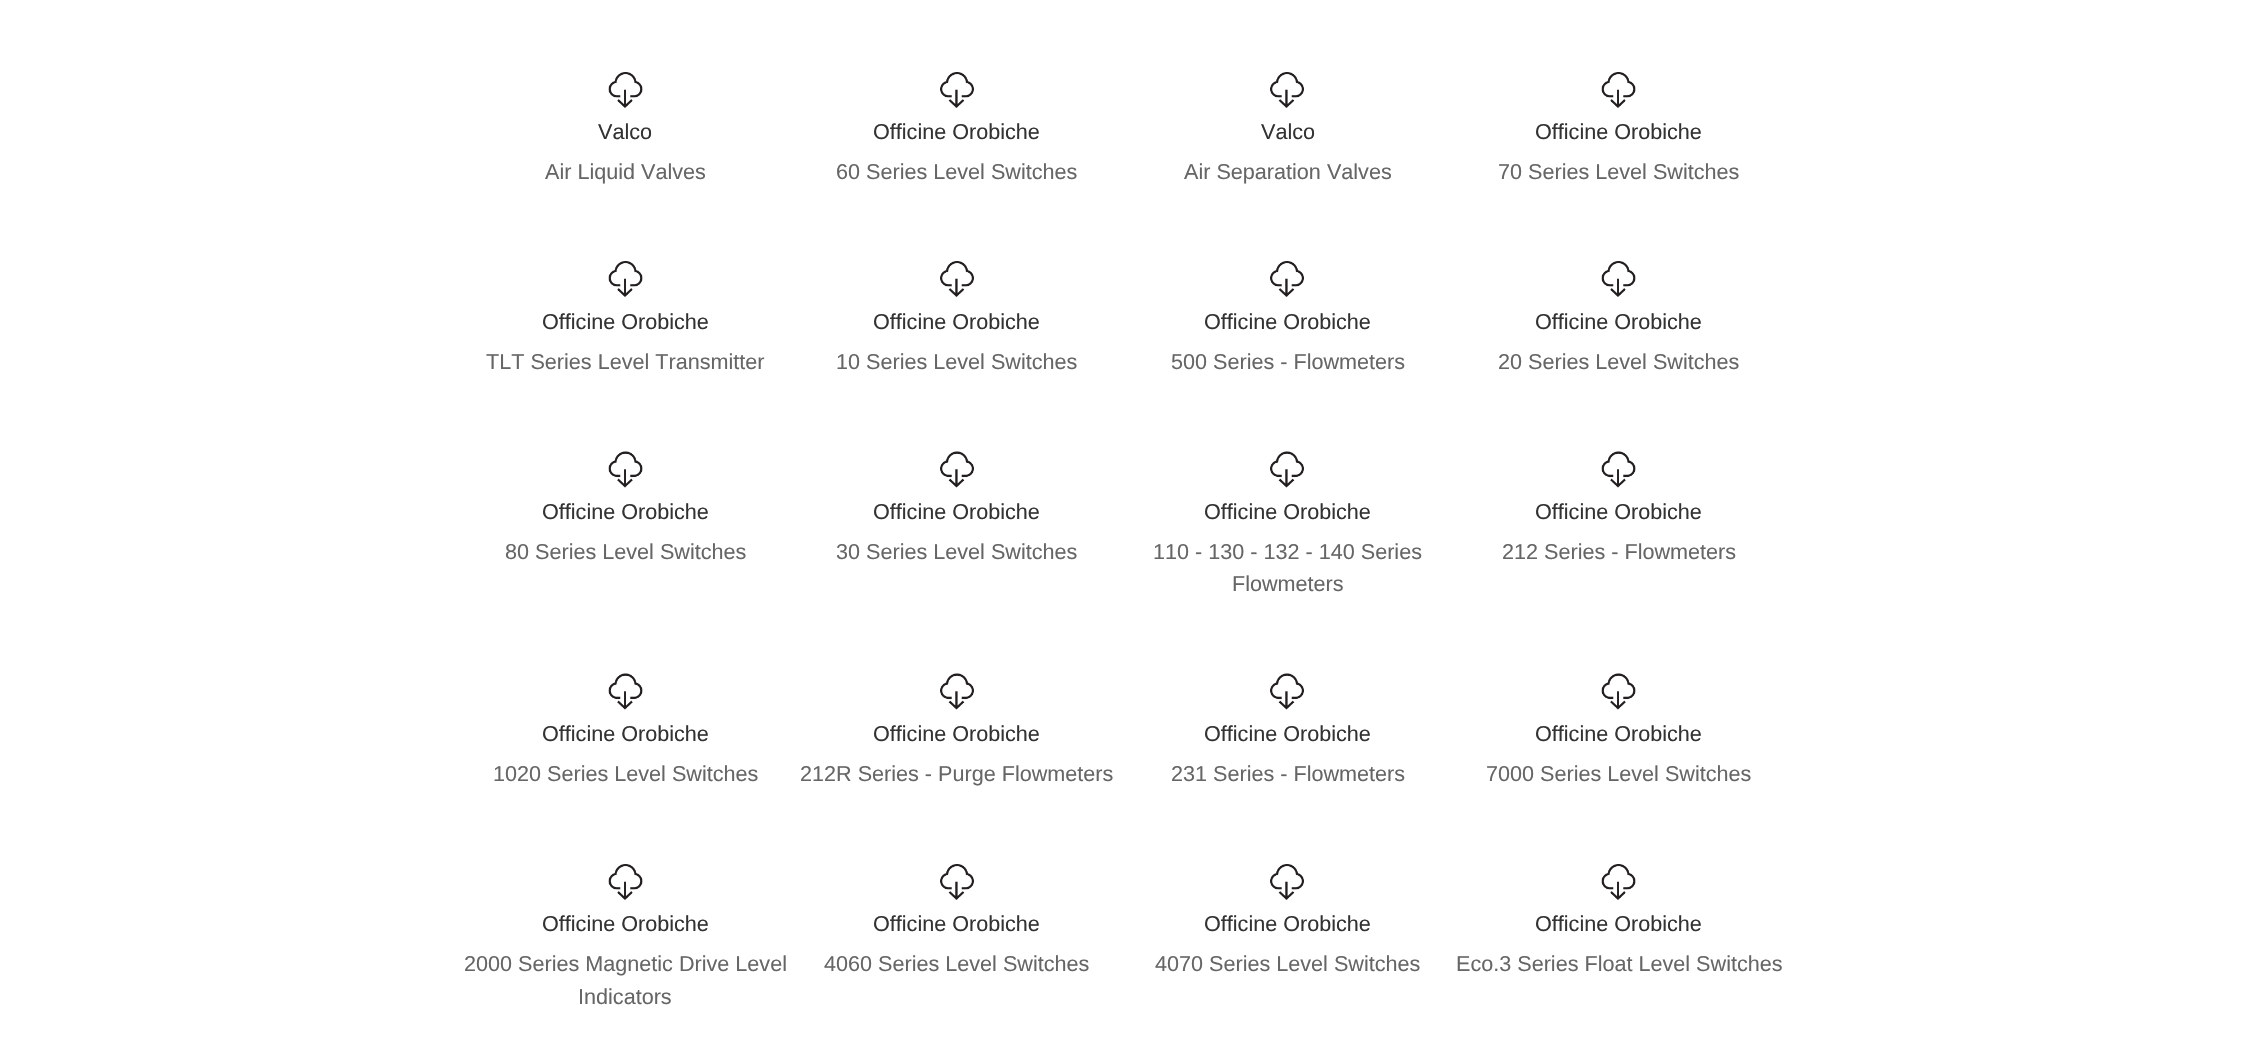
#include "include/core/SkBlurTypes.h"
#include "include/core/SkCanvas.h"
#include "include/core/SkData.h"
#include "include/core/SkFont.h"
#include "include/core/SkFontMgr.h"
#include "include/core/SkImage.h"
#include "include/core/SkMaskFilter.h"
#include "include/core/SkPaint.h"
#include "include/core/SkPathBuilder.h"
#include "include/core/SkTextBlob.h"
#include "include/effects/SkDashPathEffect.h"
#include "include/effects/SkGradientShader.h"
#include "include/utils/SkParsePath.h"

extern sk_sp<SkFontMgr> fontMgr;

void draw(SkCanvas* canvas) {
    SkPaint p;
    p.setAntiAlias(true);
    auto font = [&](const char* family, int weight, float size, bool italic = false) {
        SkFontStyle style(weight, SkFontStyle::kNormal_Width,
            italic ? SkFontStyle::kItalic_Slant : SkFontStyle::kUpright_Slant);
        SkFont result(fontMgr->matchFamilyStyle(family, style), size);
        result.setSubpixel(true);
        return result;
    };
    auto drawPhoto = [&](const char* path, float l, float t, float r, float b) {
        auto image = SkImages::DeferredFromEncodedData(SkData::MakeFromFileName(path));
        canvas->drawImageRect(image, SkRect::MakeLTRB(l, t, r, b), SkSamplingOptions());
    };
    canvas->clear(0xFFFFFFFF);
    drawPhoto("media/1.png", 608, 72, 643, 108);
    auto font1 = font("Liberation Sans", 400, 21.6f);
    p.setColor(0xFF333333);
    canvas->drawString("Valco", 598, 139, font1, p);
    p.setColor(0xFF666666);
    canvas->drawString("Air Liquid Valves", 545, 179, font1, p);
    drawPhoto("media/2.png", 940, 72, 974, 108);
    p.setColor(0xFF333333);
    canvas->drawString("Officine Orobiche", 873, 139, font1, p);
    p.setColor(0xFF666666);
    canvas->drawString("60 Series Level Switches", 836, 179, font1, p);
    drawPhoto("media/2.png", 1270, 72, 1304, 108);
    p.setColor(0xFF333333);
    canvas->drawString("Valco", 1261, 139, font1, p);
    p.setColor(0xFF666666);
    canvas->drawString("Air Separation Valves", 1184, 179, font1, p);
    drawPhoto("media/1.png", 1601, 72, 1636, 108);
    p.setColor(0xFF333333);
    canvas->drawString("Officine Orobiche", 1535, 139, font1, p);
    p.setColor(0xFF666666);
    canvas->drawString("70 Series Level Switches", 1498, 179, font1, p);
    drawPhoto("media/1.png", 608, 261, 643, 297);
    p.setColor(0xFF333333);
    canvas->drawString("Officine Orobiche", 542, 329, font1, p);
    p.setColor(0xFF666666);
    canvas->drawString("TLT Series Level Transmitter", 486, 369, font1, p);
    drawPhoto("media/2.png", 940, 261, 974, 297);
    p.setColor(0xFF333333);
    canvas->drawString("Officine Orobiche", 873, 329, font1, p);
    p.setColor(0xFF666666);
    canvas->drawString("10 Series Level Switches", 836, 369, font1, p);
    drawPhoto("media/2.png", 1270, 261, 1304, 297);
    p.setColor(0xFF333333);
    canvas->drawString("Officine Orobiche", 1204, 329, font1, p);
    p.setColor(0xFF666666);
    canvas->drawString("500 Series - Flowmeters", 1171, 369, font1, p);
    drawPhoto("media/1.png", 1601, 261, 1636, 297);
    p.setColor(0xFF333333);
    canvas->drawString("Officine Orobiche", 1535, 329, font1, p);
    p.setColor(0xFF666666);
    canvas->drawString("20 Series Level Switches", 1498, 369, font1, p);
    drawPhoto("media/3.png", 608, 451, 643, 488);
    p.setColor(0xFF333333);
    canvas->drawString("Officine Orobiche", 542, 519, font1, p);
    p.setColor(0xFF666666);
    canvas->drawString("80 Series Level Switches", 505, 559, font1, p);
    drawPhoto("media/4.png", 940, 451, 974, 488);
    p.setColor(0xFF333333);
    canvas->drawString("Officine Orobiche", 873, 519, font1, p);
    p.setColor(0xFF666666);
    canvas->drawString("30 Series Level Switches", 836, 559, font1, p);
    drawPhoto("media/4.png", 1270, 451, 1304, 488);
    p.setColor(0xFF333333);
    canvas->drawString("Officine Orobiche", 1204, 519, font1, p);
    p.setColor(0xFF666666);
    canvas->drawString("110 - 130 - 132 - 140 Series", 1153, 559, font1, p);
    canvas->drawString("Flowmeters", 1232, 591, font1, p);
    drawPhoto("media/3.png", 1601, 451, 1636, 488);
    p.setColor(0xFF333333);
    canvas->drawString("Officine Orobiche", 1535, 519, font1, p);
    p.setColor(0xFF666666);
    canvas->drawString("212 Series - Flowmeters", 1502, 559, font1, p);
    drawPhoto("media/5.png", 608, 673, 643, 710);
    p.setColor(0xFF333333);
    canvas->drawString("Officine Orobiche", 542, 741, font1, p);
    p.setColor(0xFF666666);
    canvas->drawString("1020 Series Level Switches", 493, 781, font1, p);
    drawPhoto("media/6.png", 940, 673, 974, 710);
    p.setColor(0xFF333333);
    canvas->drawString("Officine Orobiche", 873, 741, font1, p);
    p.setColor(0xFF666666);
    canvas->drawString("212R Series - Purge Flowmeters", 800, 781, font1, p);
    drawPhoto("media/6.png", 1270, 673, 1304, 710);
    p.setColor(0xFF333333);
    canvas->drawString("Officine Orobiche", 1204, 741, font1, p);
    p.setColor(0xFF666666);
    canvas->drawString("231 Series - Flowmeters", 1171, 781, font1, p);
    drawPhoto("media/5.png", 1601, 673, 1636, 710);
    p.setColor(0xFF333333);
    canvas->drawString("Officine Orobiche", 1535, 741, font1, p);
    p.setColor(0xFF666666);
    canvas->drawString("7000 Series Level Switches", 1486, 781, font1, p);
    drawPhoto("media/1.png", 608, 864, 643, 900);
    p.setColor(0xFF333333);
    canvas->drawString("Officine Orobiche", 542, 931, font1, p);
    p.setColor(0xFF666666);
    canvas->drawString("2000 Series Magnetic Drive Level", 464, 971, font1, p);
    canvas->drawString("Indicators", 578, 1004, font1, p);
    drawPhoto("media/2.png", 940, 864, 974, 900);
    p.setColor(0xFF333333);
    canvas->drawString("Officine Orobiche", 873, 931, font1, p);
    p.setColor(0xFF666666);
    canvas->drawString("4060 Series Level Switches", 824, 971, font1, p);
    drawPhoto("media/2.png", 1270, 864, 1304, 900);
    p.setColor(0xFF333333);
    canvas->drawString("Officine Orobiche", 1204, 931, font1, p);
    p.setColor(0xFF666666);
    canvas->drawString("4070 Series Level Switches", 1155, 971, font1, p);
    drawPhoto("media/1.png", 1601, 864, 1636, 900);
    p.setColor(0xFF333333);
    canvas->drawString("Officine Orobiche", 1535, 931, font1, p);
    p.setColor(0xFF666666);
    canvas->drawString("Eco.3 Series Float Level Switches", 1456, 971, font1, p);
}
